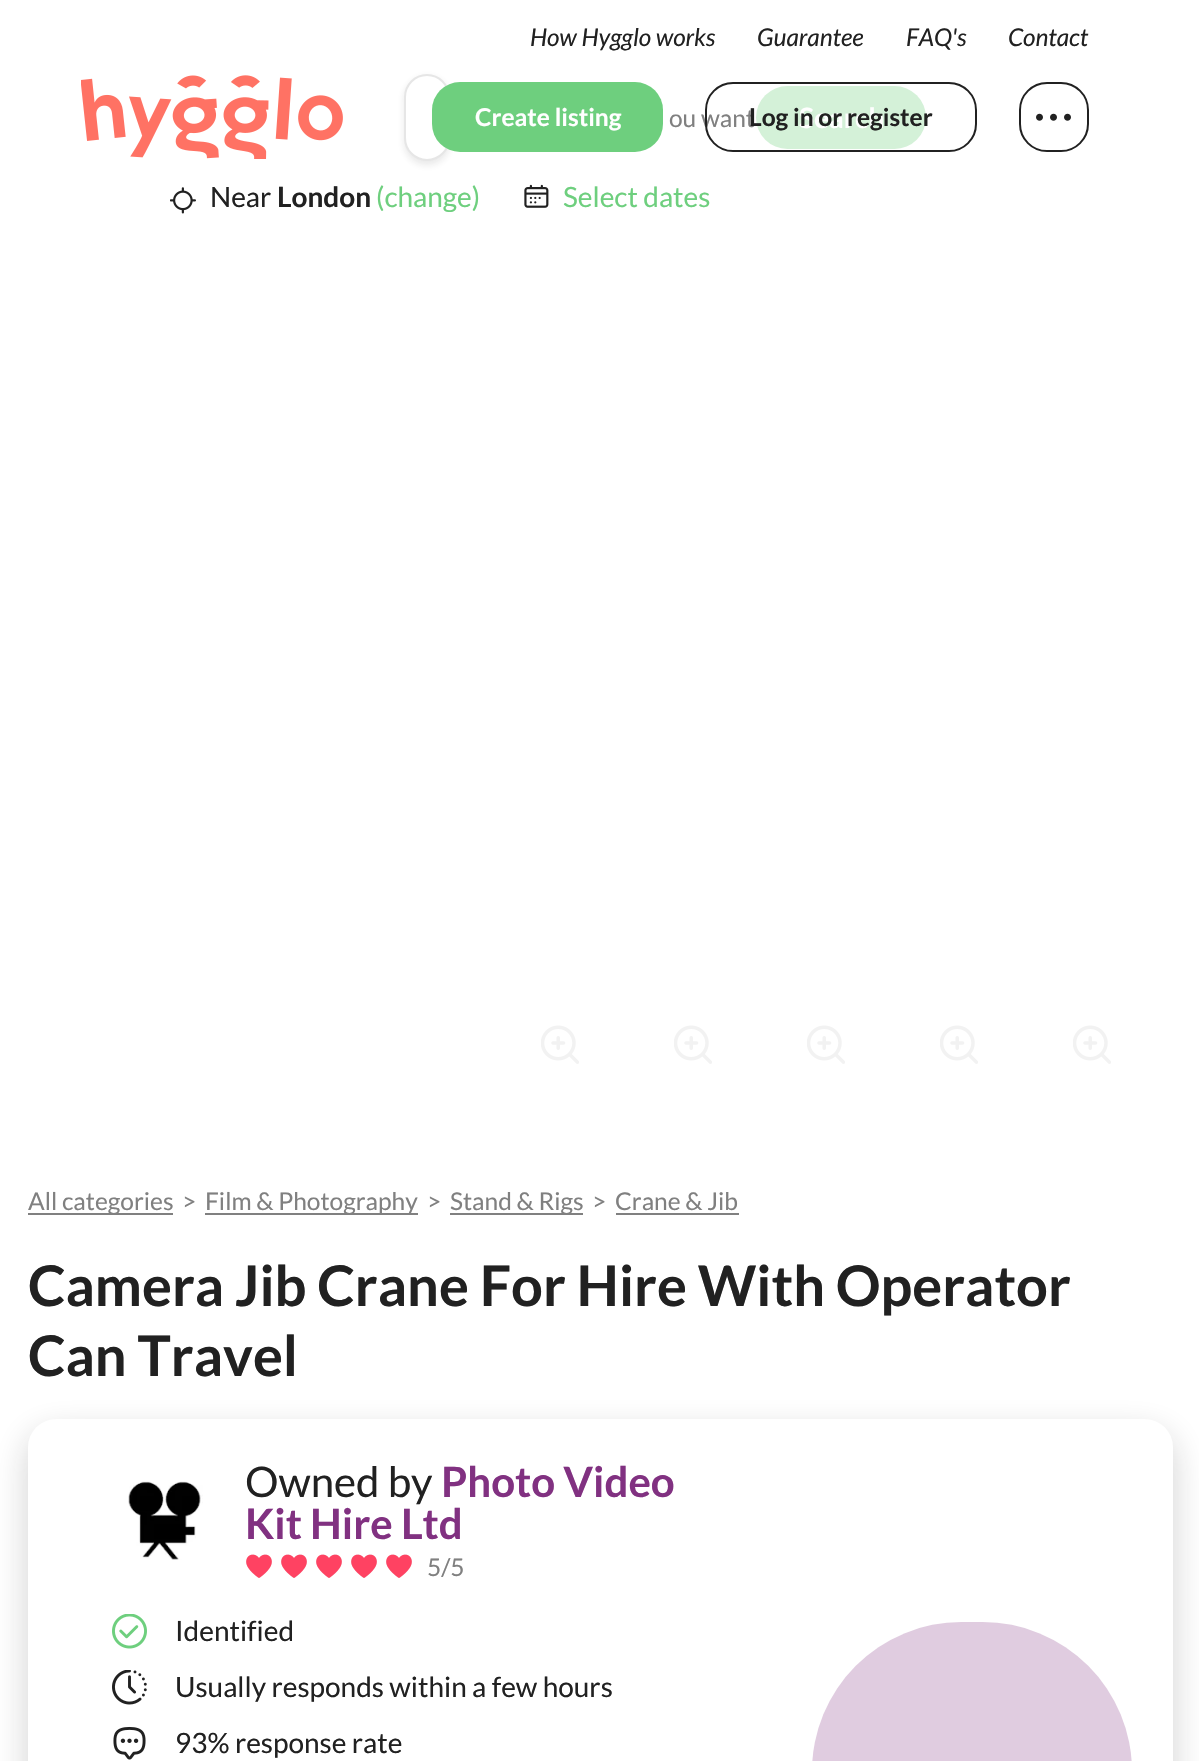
#include "include/core/SkBlurTypes.h"
#include "include/core/SkCanvas.h"
#include "include/core/SkData.h"
#include "include/core/SkFont.h"
#include "include/core/SkFontMgr.h"
#include "include/core/SkImage.h"
#include "include/core/SkMaskFilter.h"
#include "include/core/SkPaint.h"
#include "include/core/SkPathBuilder.h"
#include "include/core/SkTextBlob.h"
#include "include/effects/SkDashPathEffect.h"
#include "include/effects/SkGradientShader.h"
#include "include/utils/SkParsePath.h"

extern sk_sp<SkFontMgr> fontMgr;

void draw(SkCanvas* canvas) {
    SkPaint p;
    p.setAntiAlias(true);
    auto font = [&](const char* family, int weight, float size, bool italic = false) {
        SkFontStyle style(weight, SkFontStyle::kNormal_Width,
            italic ? SkFontStyle::kItalic_Slant : SkFontStyle::kUpright_Slant);
        SkFont result(fontMgr->matchFamilyStyle(family, style), size);
        result.setSubpixel(true);
        return result;
    };
    auto drawPhoto = [&](const char* path, float l, float t, float r, float b) {
        auto image = SkImages::DeferredFromEncodedData(SkData::MakeFromFileName(path));
        canvas->drawImageRect(image, SkRect::MakeLTRB(l, t, r, b), SkSamplingOptions());
    };
    canvas->clear(0xFFFFFFFF);
    auto font1 = font("Lato", 400, 24.5f, true);
    p.setColor(0xFF212121);
    {
        const struct { const char* s; float x, y; } items[] = {
            {"How Hygglo works", 530, 46},
            {"Guarantee", 757, 46},
            {"FAQ's", 906, 46},
            {"Contact", 1008, 46},
        };
        for (auto [s, x, y] : items) {
            canvas->drawString(s, x, y, font1, p);
        }
    }
    drawPhoto("media/1.png", 81, 75, 343, 159);
    p.setStyle(SkPaint::kStroke_Style);
    p.setStrokeWidth(2);
    canvas->drawRoundRect(SkRect::MakeLTRB(1020, 83, 1088, 151), 27, 27, p);
    drawPhoto("media/2.png", 1036, 113, 1071, 121);
    p.setStyle(SkPaint::kFill_Style);
    p.setColor(0x1A1A1A1A);
    p.setMaskFilter(SkMaskFilter::MakeBlur(kNormal_SkBlurStyle, 3.5f));
    canvas->drawRoundRect(SkRect::MakeLTRB(404, 77, 450, 165), 23, 23, p);
    p.setMaskFilter(nullptr);
    p.setColor(0xFFFFFFFF);
    canvas->drawRoundRect(SkRect::MakeLTRB(405, 75, 449, 160), 22, 22, p);
    p.setStyle(SkPaint::kStroke_Style);
    p.setColor(0xFFE6E6E6);
    canvas->drawRoundRect(SkRect::MakeLTRB(405, 75, 449, 160), 22, 22, p);
    auto font2 = font("Lato", 400, 24.5f);
    p.setStyle(SkPaint::kFill_Style);
    p.setColor(0xFF808080);
    canvas->drawString("ou want", 669, 127, font2, p);
    p.setColor(0xFFD4F1D8);
    canvas->drawRoundRect(SkRect::MakeLTRB(756, 86, 926, 149), 31.5f, 31.5f, p);
    auto font3 = font("Lato", 700, 28);
    p.setColor(0xFFFFFFFF);
    canvas->drawString("Search", 799, 128, font3, p);
    drawPhoto("media/3.png", 170, 187, 196, 214);
    auto font4 = font("Lato", 400, 28);
    p.setColor(0xFF212121);
    canvas->drawString("Near", 210, 207, font4, p);
    canvas->drawString("London", 277, 207, font3, p);
    p.setColor(0xFF6ECF7E);
    canvas->drawString("(change)", 376, 207, font4, p);
    drawPhoto("media/4.png", 524, 184, 549, 208);
    canvas->drawString("Select dates", 563, 207, font4, p);
    canvas->drawRoundRect(SkRect::MakeLTRB(432, 82, 663, 152), 28, 28, p);
    auto font5 = font("Lato", 700, 24.5f);
    p.setColor(0xFFFFFFFF);
    canvas->drawString("Create listing", 475, 126, font5, p);
    p.setStyle(SkPaint::kStroke_Style);
    p.setColor(0xFF212121);
    canvas->drawRoundRect(SkRect::MakeLTRB(706, 83, 976, 151), 27, 27, p);
    p.setStyle(SkPaint::kFill_Style);
    canvas->drawString("Log in or register", 749, 126, font5, p);
    drawPhoto("media/5.png", 541, 1025, 579, 1064);
    drawPhoto("media/5.png", 674, 1025, 712, 1064);
    drawPhoto("media/5.png", 807, 1025, 845, 1064);
    drawPhoto("media/5.png", 940, 1025, 978, 1064);
    drawPhoto("media/5.png", 1073, 1025, 1111, 1064);
    p.setColor(0xFF808080);
    canvas->drawRect(SkRect::MakeLTRB(28, 1213, 173, 1215), p);
    canvas->drawString("All categories", 28, 1210, font2, p);
    canvas->drawString(">", 182, 1210, font2, p);
    canvas->drawRect(SkRect::MakeLTRB(205, 1213, 418, 1215), p);
    canvas->drawString("Film & Photography", 205, 1210, font2, p);
    canvas->drawString(">", 427, 1210, font2, p);
    canvas->drawRect(SkRect::MakeLTRB(450, 1213, 583, 1215), p);
    {
        const struct { const char* s; float x, y; } items[] = {
            {"Stand & Rigs", 450, 1210},
            {">", 592, 1210},
            {"Crane & Jib", 615, 1210},
        };
        for (auto [s, x, y] : items) {
            canvas->drawString(s, x, y, font2, p);
        }
    }
    canvas->drawRect(SkRect::MakeLTRB(616, 1213, 739, 1215), p);
    auto font6 = font("Lato", 700, 56);
    p.setColor(0xFF212121);
    canvas->drawString("Camera Jib Crane For Hire With Operator", 28, 1306, font6, p);
    canvas->drawString("Can Travel", 28, 1376, font6, p);
    p.setColor(0x331A1A1A);
    p.setMaskFilter(SkMaskFilter::MakeBlur(kNormal_SkBlurStyle, 17.5f));
    canvas->drawRoundRect(SkRect::MakeLTRB(28, 1433, 1173, 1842), 28, 28, p);
    p.setMaskFilter(nullptr);
    p.setColor(0xFFFFFFFF);
    canvas->drawRoundRect(SkRect::MakeLTRB(28, 1419, 1173, 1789), 28, 28, p);
    drawPhoto("media/6.png", 128, 1481, 203, 1560);
    auto font7 = font("Lato", 400, 42);
    p.setColor(0xFF212121);
    canvas->drawString("Owned by", 245, 1497, font7, p);
    auto font8 = font("Lato", 700, 42);
    p.setColor(0xFF813181);
    canvas->drawString("Photo Video", 441, 1497, font8, p);
    canvas->drawString("Kit Hire Ltd", 245, 1539, font8, p);
    drawPhoto("media/7.png", 246, 1554, 272, 1578);
    drawPhoto("media/7.png", 281, 1554, 307, 1578);
    drawPhoto("media/7.png", 316, 1554, 342, 1578);
    drawPhoto("media/7.png", 351, 1554, 377, 1578);
    drawPhoto("media/7.png", 386, 1554, 412, 1578);
    drawPhoto("media/8.png", 246, 1554, 272, 1578);
    drawPhoto("media/8.png", 281, 1554, 307, 1578);
    drawPhoto("media/8.png", 316, 1554, 342, 1578);
    drawPhoto("media/8.png", 351, 1554, 377, 1578);
    drawPhoto("media/8.png", 386, 1554, 412, 1578);
    p.setColor(0xFF808080);
    canvas->drawString("5/5", 427, 1576, font2, p);
    drawPhoto("media/9.png", 112, 1614, 147, 1649);
    p.setColor(0xFF212121);
    canvas->drawString("Identified", 175, 1641, font4, p);
    drawPhoto("media/10.png", 112, 1670, 147, 1705);
    canvas->drawString("Usually responds within a few hours", 175, 1697, font4, p);
    drawPhoto("media/11.png", 113, 1726, 146, 1760);
    canvas->drawString("93% response rate", 175, 1753, font4, p);
    p.setColor(0xFFE0CCE0);
    canvas->drawRoundRect(SkRect::MakeLTRB(812, 1622, 1132, 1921), 160, 160, p);
}
